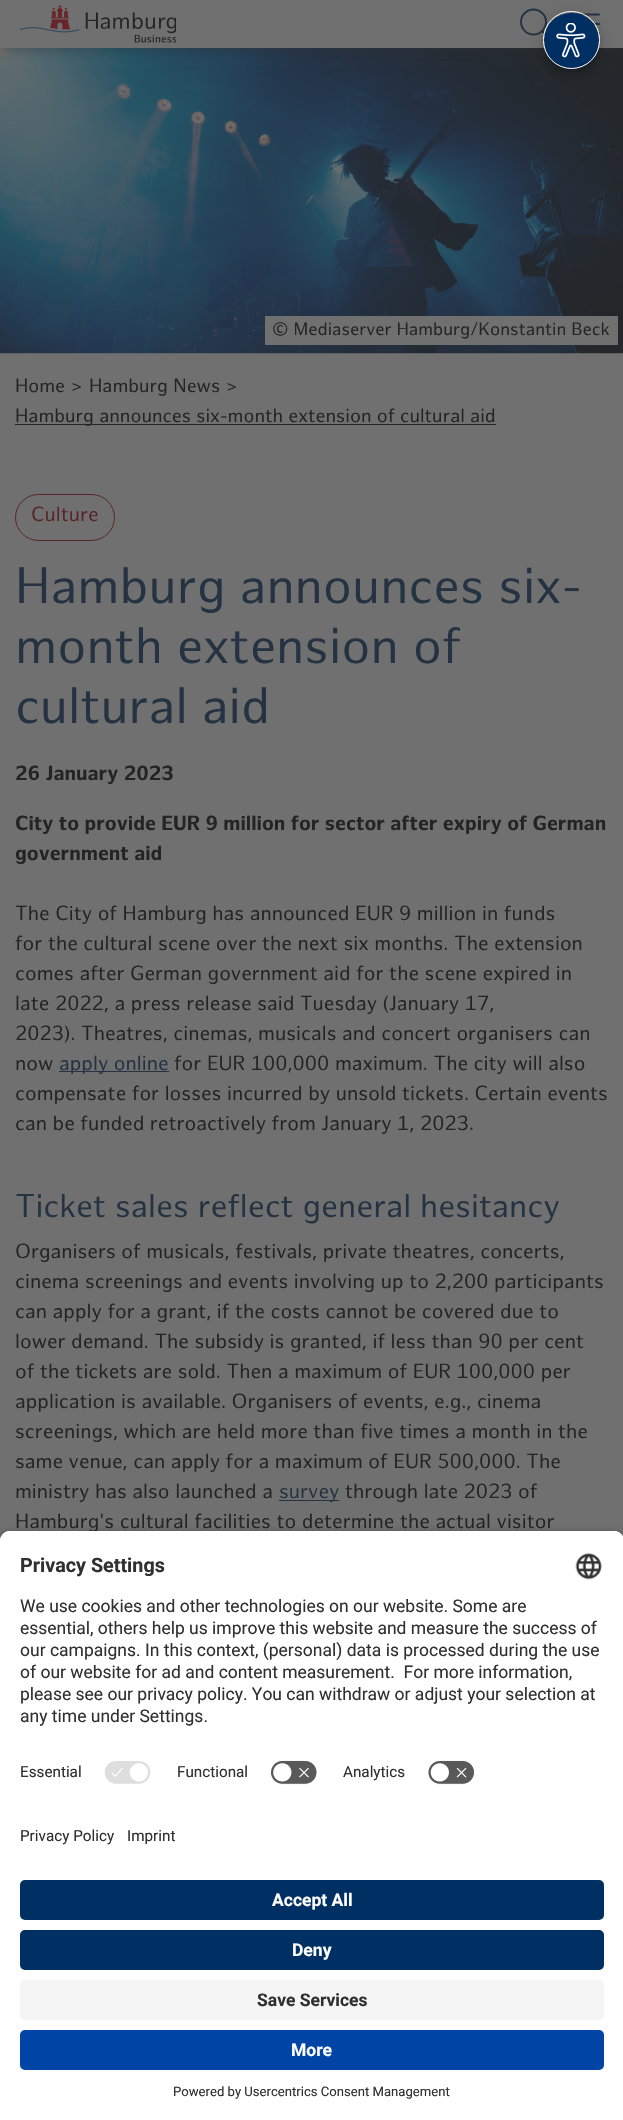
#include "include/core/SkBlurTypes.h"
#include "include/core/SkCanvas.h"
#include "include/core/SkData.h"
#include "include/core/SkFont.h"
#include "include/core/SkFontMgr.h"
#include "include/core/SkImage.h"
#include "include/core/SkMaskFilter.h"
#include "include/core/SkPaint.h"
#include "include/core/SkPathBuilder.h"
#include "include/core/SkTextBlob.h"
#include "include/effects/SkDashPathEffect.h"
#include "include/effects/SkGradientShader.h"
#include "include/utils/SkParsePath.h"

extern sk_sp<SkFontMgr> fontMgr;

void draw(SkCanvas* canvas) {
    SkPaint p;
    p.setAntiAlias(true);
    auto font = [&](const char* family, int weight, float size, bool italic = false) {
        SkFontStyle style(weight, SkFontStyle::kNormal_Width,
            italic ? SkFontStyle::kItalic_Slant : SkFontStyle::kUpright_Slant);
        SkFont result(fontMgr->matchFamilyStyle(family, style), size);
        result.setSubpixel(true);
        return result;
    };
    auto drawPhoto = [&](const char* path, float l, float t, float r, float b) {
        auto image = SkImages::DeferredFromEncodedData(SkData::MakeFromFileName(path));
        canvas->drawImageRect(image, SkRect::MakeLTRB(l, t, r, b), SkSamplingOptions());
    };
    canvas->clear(0xFF707070);
    drawPhoto("media/3.png", 0, 48, 623, 354);
    p.setColor(0x80323232);
    p.setMaskFilter(SkMaskFilter::MakeBlur(kNormal_SkBlurStyle, 6));
    canvas->drawRect(SkRect::MakeLTRB(0, 0, 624, 48), p);
    p.setMaskFilter(nullptr);
    p.setColor(0xFF707070);
    canvas->drawRect(SkRect::MakeLTRB(0, 0, 623, 48), p);
    p.setStyle(SkPaint::kStroke_Style);
    p.setStrokeWidth(2);
    p.setColor(0xFF243241);
    canvas->drawCircle(533.5f, 22, 12.5f, p);
    p.setStrokeCap(SkPaint::kRound_Cap);
    p.setStrokeJoin(SkPaint::kRound_Join);
    canvas->drawPath(SkPathBuilder().moveTo(549, 38).lineTo(542.5f, 31).moveTo(571, 24).lineTo(599, 24).moveTo(571, 14.5f).lineTo(599, 14.5f).moveTo(571, 33).lineTo(599, 33).detach(), p);
    p.setStyle(SkPaint::kFill_Style);
    p.setColor(0x1F000000);
    p.setMaskFilter(SkMaskFilter::MakeBlur(kNormal_SkBlurStyle, 11));
    canvas->drawRoundRect(SkRect::MakeLTRB(544, 14, 599, 69), 27.5f, 27.5f, p);
    p.setMaskFilter(nullptr);
    p.setColor(0x24000000);
    p.setMaskFilter(SkMaskFilter::MakeBlur(kNormal_SkBlurStyle, 6));
    canvas->drawRoundRect(SkRect::MakeLTRB(544, 20, 599, 75), 27.5f, 27.5f, p);
    p.setMaskFilter(nullptr);
    p.setColor(0x33000000);
    p.setMaskFilter(SkMaskFilter::MakeBlur(kNormal_SkBlurStyle, 3));
    canvas->drawRoundRect(SkRect::MakeLTRB(545, 18, 598, 70), 26, 26, p);
    p.setMaskFilter(nullptr);
    p.setColor(0xFF003063);
    canvas->drawCircle(571.5f, 40.5f, 27.5f, p);
    p.setStyle(SkPaint::kStroke_Style);
    p.setStrokeWidth(1);
    p.setStrokeCap(SkPaint::kButt_Cap);
    p.setStrokeJoin(SkPaint::kMiter_Join);
    p.setColor(0xFFFFFFFF);
    canvas->drawRoundRect(SkRect::MakeLTRB(543.5f, 11.5f, 599.5f, 68.5f), 28, 28, p);
    drawPhoto("media/1.png", 556, 23, 586, 58);
    drawPhoto("media/2.png", 20, 5, 176, 43);
    p.setStyle(SkPaint::kFill_Style);
    p.setColor(0xFF707070);
    canvas->drawRect(SkRect::MakeLTRB(265, 316, 618, 345), p);
    auto font1 = font("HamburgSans", 400, 17.5f);
    p.setColor(0xFF242424);
    canvas->drawString("© Mediaserver Hamburg/Konstantin Beck", 272, 335, font1, p);
    auto font2 = font("HamburgSans", 400, 18.75f);
    {
        const struct { const char* s; float x, y; } items[] = {
            {"Home", 15, 392},
            {">", 71, 392},
            {"Hamburg News", 89, 392},
            {">", 226, 392},
        };
        for (auto [s, x, y] : items) {
            canvas->drawString(s, x, y, font2, p);
        }
    }
    canvas->drawRect(SkRect::MakeLTRB(15, 424, 496, 425), p);
    canvas->drawString("Hamburg announces six-month extension of cultural aid", 15, 422, font2, p);
    p.setStyle(SkPaint::kStroke_Style);
    p.setColor(0xFF592429);
    canvas->drawRoundRect(SkRect::MakeLTRB(15.5f, 494.5f, 114.5f, 540.5f), 23, 23, p);
    auto font3 = font("HamburgSans", 400, 20);
    p.setStyle(SkPaint::kFill_Style);
    canvas->drawString("Culture", 31, 521, font3, p);
    auto font4 = font("HamburgSans", 400, 50);
    p.setColor(0xFF243241);
    {
        const struct { const char* s; float x, y; } items[] = {
            {"Hamburg announces six-", 15, 603},
            {"month extension of", 15, 663},
            {"cultural aid", 15, 723},
        };
        for (auto [s, x, y] : items) {
            canvas->drawString(s, x, y, font4, p);
        }
    }
    auto font5 = font("HamburgSans", 700, 20);
    p.setColor(0xFF242424);
    {
        const struct { const char* s; float x, y; } items[] = {
            {"26 January 2023", 15, 780},
            {"City to provide EUR 9 million for sector after expiry of German", 15, 830},
            {"government aid", 15, 860},
        };
        for (auto [s, x, y] : items) {
            canvas->drawString(s, x, y, font5, p);
        }
    }
    {
        const struct { const char* s; float x, y; } items[] = {
            {"The City of Hamburg has announced EUR 9 million in funds", 15, 920},
            {"for the cultural scene over the next six months. The extension", 15, 950},
            {"comes after German government aid for the scene expired in", 15, 980},
            {"late 2022, a press release said Tuesday (January 17,", 15, 1010},
            {"2023). Theatres, cinemas, musicals and concert organisers can", 15, 1040},
            {"now", 15, 1070},
        };
        for (auto [s, x, y] : items) {
            canvas->drawString(s, x, y, font3, p);
        }
    }
    p.setColor(0xFF243241);
    canvas->drawRect(SkRect::MakeLTRB(59, 1071, 169, 1072), p);
    canvas->drawString("apply online", 59, 1070, font3, p);
    p.setColor(0xFF242424);
    {
        const struct { const char* s; float x, y; } items[] = {
            {"for EUR 100,000 maximum. The city will also", 174, 1070},
            {"compensate for losses incurred by unsold tickets. Certain events", 15, 1100},
            {"can be funded retroactively from January 1, 2023.", 15, 1130},
        };
        for (auto [s, x, y] : items) {
            canvas->drawString(s, x, y, font3, p);
        }
    }
    auto font6 = font("HamburgSans", 400, 32.1f);
    p.setColor(0xFF243241);
    canvas->drawString("Ticket sales reflect general hesitancy", 15, 1217, font6, p);
    p.setColor(0xFF242424);
    {
        const struct { const char* s; float x, y; } items[] = {
            {"Organisers of musicals, festivals, private theatres, concerts,", 15, 1258},
            {"cinema screenings and events involving up to 2,200 participants", 15, 1288},
            {"can apply for a grant, if the costs cannot be covered due to", 15, 1318},
            {"lower demand. The subsidy is granted, if less than 90 per cent", 15, 1348},
            {"of the tickets are sold. Then a maximum of EUR 100,000 per", 15, 1378},
            {"application is available. Organisers of events, e.g., cinema", 15, 1408},
            {"screenings, which are held more than five times a month in the", 15, 1438},
            {"same venue, can apply for a maximum of EUR 500,000. The", 15, 1468},
            {"ministry has also launched a", 15, 1498},
        };
        for (auto [s, x, y] : items) {
            canvas->drawString(s, x, y, font3, p);
        }
    }
    p.setColor(0xFF243241);
    canvas->drawRect(SkRect::MakeLTRB(279, 1500, 339, 1501), p);
    canvas->drawString("survey", 279, 1498, font3, p);
    p.setColor(0xFF242424);
    canvas->drawString("through late 2023 of", 345, 1498, font3, p);
    canvas->drawString("Hamburg's cultural facilities to determine the actual visitor", 15, 1528, font3, p);
    p.setColor(0xCC000000);
    p.setMaskFilter(SkMaskFilter::MakeBlur(kNormal_SkBlurStyle, 4.5f));
    canvas->drawRoundRect(SkRect::MakeLTRB(0, 1535, 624, 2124), 10, 10, p);
    p.setMaskFilter(nullptr);
    p.setColor(0xFFFFFFFF);
    canvas->drawPath(SkPathBuilder().moveTo(10, 1531).lineTo(614, 1531).cubicTo(619.5f, 1531, 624, 1535.5f, 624, 1541).lineTo(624, 1808).lineTo(0, 1808).lineTo(0, 1541).cubicTo(0, 1535.5f, 4.5f, 1531, 10, 1531).close().detach(), p);
    canvas->drawPath(SkPathBuilder().moveTo(10, 1531).lineTo(614, 1531).cubicTo(619.5f, 1531, 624, 1535.5f, 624, 1541).lineTo(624, 1753).lineTo(0, 1753).lineTo(0, 1541).cubicTo(0, 1535.5f, 4.5f, 1531, 10, 1531).close().detach(), p);
    auto font7 = font("Roboto", 700, 19.75f);
    p.setColor(0xFF303030);
    canvas->drawString("Privacy Settings", 20, 1572, font7, p);
    drawPhoto("media/4.png", 575, 1553, 602, 1580);
    auto font8 = font("Roboto", 400, 17.5f);
    {
        const struct { const char* s; float x, y; } items[] = {
            {"We use cookies and other technologies on our website. Some are", 20, 1612},
            {"essential, others help us improve this website and measure the success of", 20, 1634},
            {"our campaigns. In this context, (personal) data is processed during the use", 20, 1656},
            {"of our website for ad and content measurement.  For more information,", 20, 1678},
            {"please see our privacy policy. You can withdraw or adjust your selection at", 20, 1700},
            {"any time under Settings.", 20, 1722},
        };
        for (auto [s, x, y] : items) {
            canvas->drawString(s, x, y, font8, p);
        }
    }
    auto font9 = font("Roboto", 400, 15.25f);
    canvas->drawString("Essential", 20, 1777, font9, p);
    drawPhoto("media/5.png", 104, 1761, 151, 1784);
    canvas->drawString("Functional", 177, 1777, font9, p);
    drawPhoto("media/6.png", 270, 1760, 318, 1785);
    canvas->drawString("Analytics", 343, 1777, font9, p);
    drawPhoto("media/7.png", 427, 1760, 475, 1785);
    p.setColor(0xFFFFFFFF);
    canvas->drawRect(SkRect::MakeLTRB(0, 1808, 623, 2120), p);
    p.setColor(0xFF303030);
    canvas->drawString("Privacy Policy", 20, 1841, font9, p);
    canvas->drawString("Imprint", 127, 1841, font9, p);
    p.setColor(0xFF003063);
    canvas->drawRoundRect(SkRect::MakeLTRB(20, 1880, 604, 1920), 5, 5, p);
    auto font10 = font("Roboto", 700, 17.5f);
    p.setColor(0xFFFFFFFF);
    canvas->drawString("Accept All", 272, 1906, font10, p);
    p.setColor(0xFF003063);
    canvas->drawRoundRect(SkRect::MakeLTRB(20, 1930, 604, 1970), 5, 5, p);
    p.setColor(0xFFFFFFFF);
    canvas->drawString("Deny", 292, 1956, font10, p);
    p.setColor(0xFFF5F5F5);
    canvas->drawRoundRect(SkRect::MakeLTRB(20, 1980, 604, 2020), 5, 5, p);
    p.setColor(0xFF303030);
    canvas->drawString("Save Services", 257, 2006, font10, p);
    p.setColor(0xFF0045A5);
    canvas->drawRoundRect(SkRect::MakeLTRB(20, 2030, 604, 2070), 5, 5, p);
    p.setColor(0xFFFFFFFF);
    canvas->drawString("More", 291, 2056, font10, p);
    auto font11 = font("Roboto", 400, 13.1f);
    p.setColor(0xFF303030);
    canvas->drawString("Powered by Usercentrics Consent Management", 173, 2096, font11, p);
}
